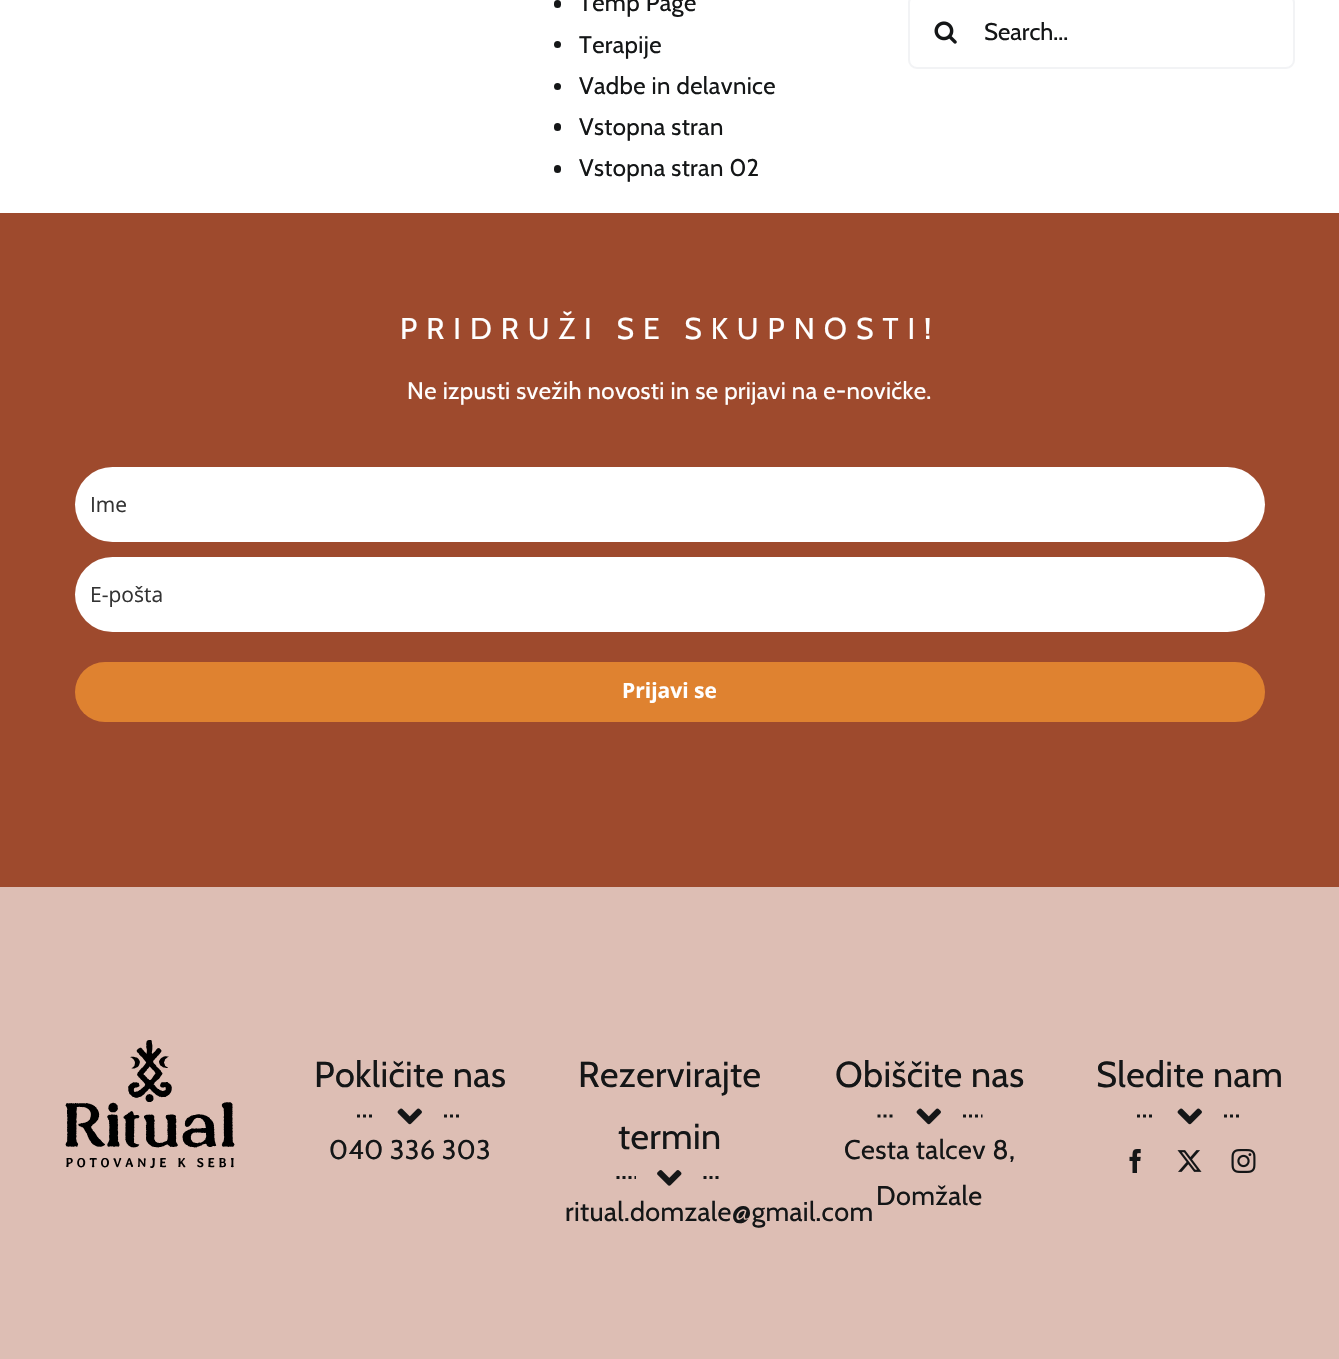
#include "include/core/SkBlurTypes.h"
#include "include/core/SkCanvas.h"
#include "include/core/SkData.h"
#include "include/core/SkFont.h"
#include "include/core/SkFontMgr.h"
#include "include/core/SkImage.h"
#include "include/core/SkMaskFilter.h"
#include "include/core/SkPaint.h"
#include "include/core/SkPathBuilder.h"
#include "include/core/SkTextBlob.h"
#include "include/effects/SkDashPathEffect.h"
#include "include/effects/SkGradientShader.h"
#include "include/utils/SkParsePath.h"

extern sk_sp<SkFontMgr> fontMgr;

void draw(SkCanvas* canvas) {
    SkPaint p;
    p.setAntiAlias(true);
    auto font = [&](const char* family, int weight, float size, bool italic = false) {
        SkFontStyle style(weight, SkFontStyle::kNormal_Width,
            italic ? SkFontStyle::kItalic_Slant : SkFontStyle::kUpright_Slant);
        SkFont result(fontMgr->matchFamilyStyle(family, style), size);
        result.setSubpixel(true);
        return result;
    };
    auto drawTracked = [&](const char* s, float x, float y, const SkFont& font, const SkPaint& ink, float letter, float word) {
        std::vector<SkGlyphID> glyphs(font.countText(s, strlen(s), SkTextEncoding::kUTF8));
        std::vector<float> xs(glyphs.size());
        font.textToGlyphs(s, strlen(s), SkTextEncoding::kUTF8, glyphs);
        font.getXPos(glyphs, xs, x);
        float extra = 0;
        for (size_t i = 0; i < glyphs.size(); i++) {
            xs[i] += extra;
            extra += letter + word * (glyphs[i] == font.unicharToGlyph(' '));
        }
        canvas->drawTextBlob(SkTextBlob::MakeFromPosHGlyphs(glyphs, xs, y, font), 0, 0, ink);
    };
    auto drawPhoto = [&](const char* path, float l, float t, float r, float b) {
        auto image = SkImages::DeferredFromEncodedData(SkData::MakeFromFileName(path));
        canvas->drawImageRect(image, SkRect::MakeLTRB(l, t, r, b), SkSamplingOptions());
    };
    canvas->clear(0xFFFFFFFF);
    p.setColor(0xFF141617);
    canvas->drawRoundRect(SkRect::MakeLTRB(554, 0, 561, 8), 3.5f, 3.5f, p);
    auto font1 = font("Cabin", 400, 24);
    drawTracked("Temp Page", 579, 11, font1, p, 0.35f, 0);
    canvas->drawCircle(557.5f, 44.5f, 3.5f, p);
    drawTracked("Terapije", 579, 53, font1, p, 0.35f, 0);
    canvas->drawCircle(557.5f, 86.5f, 3.5f, p);
    drawTracked("Vadbe in delavnice", 579, 94, font1, p, 0.35f, 0);
    canvas->drawRoundRect(SkRect::MakeLTRB(554, 123, 561, 131), 3.5f, 3.5f, p);
    drawTracked("Vstopna stran", 579, 135, font1, p, 0.35f, 0);
    canvas->drawRoundRect(SkRect::MakeLTRB(554, 165, 561, 173), 3.5f, 3.5f, p);
    drawTracked("Vstopna stran 02", 579, 176, font1, p, 0.35f, 0);
    p.setStyle(SkPaint::kStroke_Style);
    p.setStrokeWidth(2);
    p.setColor(0xFFF2F3F5);
    canvas->drawRoundRect(SkRect::MakeLTRB(909, -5, 1294, 68), 8, 8, p);
    drawPhoto("media/1.png", 934, 21, 957, 44);
    p.setStyle(SkPaint::kFill_Style);
    p.setColor(0xFF141617);
    canvas->drawString("Search...", 984, 40, font1, p);
    p.setColor(0xFF9E4A2D);
    canvas->drawRect(SkRect::MakeLTRB(0, 213, 1339, 887), p);
    auto font2 = font("Cabin", 400, 30);
    p.setColor(0xFFFFFFFF);
    drawTracked("PRIDRUŽI SE SKUPNOSTI!", 400, 339, font2, p, 9, 0);
    drawTracked("Ne izpusti svežih novosti in se prijavi na e-novičke.", 407, 399, font1, p, 0.35f, 0);
    canvas->drawRoundRect(SkRect::MakeLTRB(75, 467, 1265, 542), 37.5f, 37.5f, p);
    auto font3 = font("Open Sans", 400, 21);
    p.setColor(0xFF333333);
    canvas->drawString("Ime", 90, 512, font3, p);
    p.setColor(0xFFFFFFFF);
    canvas->drawRoundRect(SkRect::MakeLTRB(75, 557, 1265, 632), 37.5f, 37.5f, p);
    p.setColor(0xFF333333);
    canvas->drawString("E-pošta", 90, 602, font3, p);
    p.setColor(0xFFDF8230);
    canvas->drawRoundRect(SkRect::MakeLTRB(75, 662, 1265, 722), 30, 30, p);
    auto font4 = font("Open Sans", 700, 21);
    p.setColor(0xFFFFFFFF);
    canvas->drawString("Prijavi se", 622, 698, font4, p);
    p.setColor(0xFFDDBEB4);
    canvas->drawRect(SkRect::MakeLTRB(0, 887, 1339, 1359), p);
    drawPhoto("media/2.png", 65, 1040, 235, 1168);
    auto font5 = font("Cabin", 400, 36);
    p.setColor(0xFF141617);
    drawTracked("Pokličite nas", 314, 1087, font5, p, 0.35f, 0);
    p.setStyle(SkPaint::kStroke_Style);
    p.setStrokeWidth(3);
    canvas->drawPath(SkPathBuilder().moveTo(357, 1116).lineTo(360, 1116).moveTo(363, 1116).lineTo(366, 1116).moveTo(369, 1116).lineTo(372, 1116).detach(), p);
    drawPhoto("media/3.png", 397, 1108, 422, 1125);
    canvas->drawPath(SkPathBuilder().moveTo(444, 1116).lineTo(447, 1116).moveTo(450, 1116).lineTo(453, 1116).moveTo(456, 1116).lineTo(459, 1116).detach(), p);
    auto font6 = font("Cabin", 400, 27);
    p.setStyle(SkPaint::kFill_Style);
    drawTracked("040 336 303", 329, 1159, font6, p, 0.35f, 0);
    drawTracked("Rezervirajte", 578, 1087, font5, p, 0.35f, 0);
    drawTracked("termin", 618, 1149, font5, p, 0.35f, 0);
    p.setStyle(SkPaint::kStroke_Style);
    canvas->drawPath(SkPathBuilder().moveTo(616.5f, 1177.5f).lineTo(619.5f, 1177.5f).moveTo(622.5f, 1177.5f).lineTo(625.5f, 1177.5f).moveTo(628.5f, 1177.5f).lineTo(631.5f, 1177.5f).moveTo(634.5f, 1177.5f).lineTo(636, 1177.5f).detach(), p);
    drawPhoto("media/4.png", 657, 1170, 682, 1186);
    canvas->drawPath(SkPathBuilder().moveTo(703.5f, 1177.5f).lineTo(706.5f, 1177.5f).moveTo(709.5f, 1177.5f).lineTo(712.5f, 1177.5f).moveTo(715.5f, 1177.5f).lineTo(718.5f, 1177.5f).detach(), p);
    p.setStyle(SkPaint::kFill_Style);
    drawTracked("ritual.domzale@gmail.com", 565, 1221, font6, p, 0.35f, 0);
    drawTracked("Obiščite nas", 835, 1087, font5, p, 0.35f, 0);
    p.setStyle(SkPaint::kStroke_Style);
    canvas->drawPath(SkPathBuilder().moveTo(877.5f, 1116).lineTo(880.5f, 1116).moveTo(883.5f, 1116).lineTo(886.5f, 1116).moveTo(889.5f, 1116).lineTo(892.5f, 1116).detach(), p);
    drawPhoto("media/3.png", 916, 1108, 941, 1125);
    canvas->drawPath(SkPathBuilder().moveTo(963, 1116).lineTo(966, 1116).moveTo(969, 1116).lineTo(972, 1116).moveTo(975, 1116).lineTo(978, 1116).moveTo(981, 1116).lineTo(982.5f, 1116).detach(), p);
    p.setStyle(SkPaint::kFill_Style);
    drawTracked("Cesta talcev 8,", 844, 1159, font6, p, 0.35f, 0);
    drawTracked("Domžale", 876, 1205, font6, p, 0.35f, 0);
    drawTracked("Sledite nam", 1096, 1087, font5, p, 0.35f, 0);
    p.setStyle(SkPaint::kStroke_Style);
    canvas->drawPath(SkPathBuilder().moveTo(1137, 1116).lineTo(1140, 1116).moveTo(1143, 1116).lineTo(1146, 1116).moveTo(1149, 1116).lineTo(1152, 1116).detach(), p);
    drawPhoto("media/3.png", 1177, 1108, 1202, 1125);
    canvas->drawPath(SkPathBuilder().moveTo(1224, 1116).lineTo(1227, 1116).moveTo(1230, 1116).lineTo(1233, 1116).moveTo(1236, 1116).lineTo(1239, 1116).detach(), p);
    drawPhoto("media/5.png", 1129, 1149, 1141, 1173);
    drawPhoto("media/6.png", 1177, 1150, 1202, 1172);
    drawPhoto("media/7.png", 1231, 1149, 1256, 1173);
}
